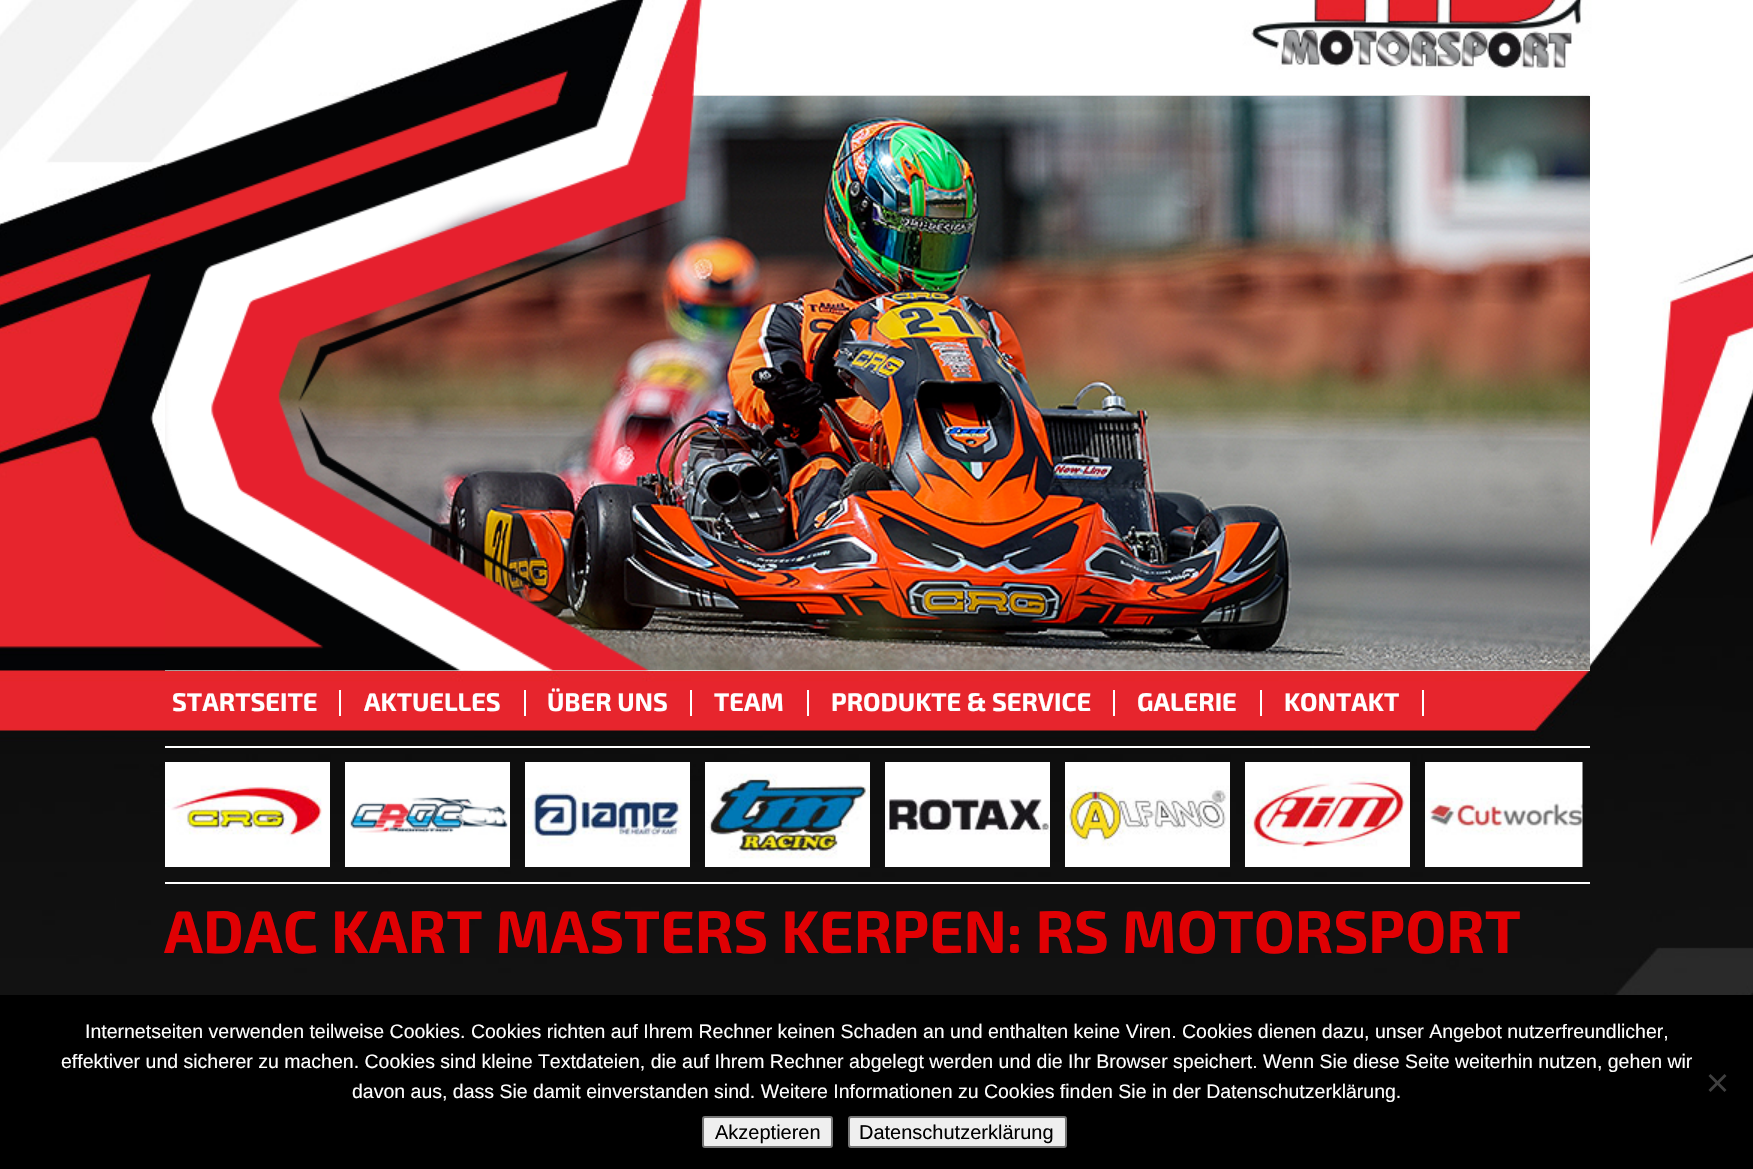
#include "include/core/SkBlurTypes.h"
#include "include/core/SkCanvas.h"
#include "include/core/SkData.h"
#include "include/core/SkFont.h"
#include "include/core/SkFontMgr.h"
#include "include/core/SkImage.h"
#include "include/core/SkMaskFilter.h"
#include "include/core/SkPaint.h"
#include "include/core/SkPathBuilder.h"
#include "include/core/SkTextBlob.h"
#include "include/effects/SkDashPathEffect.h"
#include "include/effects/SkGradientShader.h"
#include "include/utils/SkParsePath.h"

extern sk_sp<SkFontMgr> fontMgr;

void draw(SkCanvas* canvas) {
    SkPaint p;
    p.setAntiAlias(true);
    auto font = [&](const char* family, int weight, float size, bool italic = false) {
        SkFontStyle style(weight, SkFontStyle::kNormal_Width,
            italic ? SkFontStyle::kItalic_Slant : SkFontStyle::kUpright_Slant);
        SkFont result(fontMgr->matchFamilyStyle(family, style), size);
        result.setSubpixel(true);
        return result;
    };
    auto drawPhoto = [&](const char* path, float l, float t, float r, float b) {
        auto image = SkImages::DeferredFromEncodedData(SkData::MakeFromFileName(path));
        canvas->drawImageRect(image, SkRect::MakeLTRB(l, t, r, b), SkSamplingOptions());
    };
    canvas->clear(0xFFFFFFFF);
    drawPhoto("media/1.png", 0, 0, 1753, 995);
    p.setColor(0xFFFFFFFF);
    canvas->drawRect(SkRect::MakeLTRB(165, 670, 1590, 671), p);
    drawPhoto("media/2.png", 165, 96, 1590, 671);
    drawPhoto("media/3.png", 165, 96, 707, 671);
    canvas->drawRect(SkRect::MakeLTRB(339, 690, 341, 716), p);
    auto font1 = font("Exo 2", 700, 25.5f);
    canvas->drawString("STARTSEITE", 172, 711, font1, p);
    canvas->drawRect(SkRect::MakeLTRB(524, 690, 526, 716), p);
    canvas->drawString("AKTUELLES", 364, 711, font1, p);
    canvas->drawRect(SkRect::MakeLTRB(690, 690, 692, 716), p);
    canvas->drawString("ÜBER UNS", 547, 711, font1, p);
    canvas->drawRect(SkRect::MakeLTRB(807, 690, 809, 716), p);
    canvas->drawString("TEAM", 714, 711, font1, p);
    canvas->drawRect(SkRect::MakeLTRB(1113, 690, 1115, 716), p);
    canvas->drawString("PRODUKTE & SERVICE", 831, 711, font1, p);
    canvas->drawRect(SkRect::MakeLTRB(1260, 690, 1262, 716), p);
    canvas->drawString("GALERIE", 1137, 711, font1, p);
    canvas->drawRect(SkRect::MakeLTRB(1422, 690, 1424, 716), p);
    canvas->drawString("KONTAKT", 1284, 711, font1, p);
    canvas->drawRect(SkRect::MakeLTRB(165, 746, 1590, 748), p);
    canvas->drawRect(SkRect::MakeLTRB(165, 882, 1590, 884), p);
    drawPhoto("media/4.png", 165, 762, 330, 867);
    drawPhoto("media/5.png", 345, 762, 510, 867);
    drawPhoto("media/6.png", 525, 762, 690, 867);
    drawPhoto("media/7.png", 705, 762, 870, 867);
    drawPhoto("media/8.png", 885, 762, 1050, 867);
    drawPhoto("media/9.png", 1065, 762, 1230, 867);
    drawPhoto("media/10.png", 1245, 762, 1410, 867);
    drawPhoto("media/11.png", 1425, 762, 1583, 867);
    auto font2 = font("Exo 2", 700, 60);
    p.setColor(0xFFE00003);
    canvas->drawString("ADAC KART MASTERS KERPEN: RS MOTORSPORT", 164, 953, font2, p);
    p.setColor(0xFF000000);
    canvas->drawRect(SkRect::MakeLTRB(0, 995, 1753, 1169), p);
    auto font3 = font("Liberation Sans", 400, 19.5f);
    p.setColor(0xFFFFFFFF);
    {
        const struct { const char* s; float x, y; } items[] = {
            {"Internetseiten verwenden teilweise Cookies. Cookies richten auf Ihrem Rechner keinen Schaden an und enthalten keine Viren. Cookies dienen dazu, unser Angebot nutzerfreundlicher,", 85, 1038},
            {"effektiver und sicherer zu machen. Cookies sind kleine Textdateien, die auf Ihrem Rechner abgelegt werden und die Ihr Browser speichert. Wenn Sie diese Seite weiterhin nutzen, gehen wir", 61, 1068},
            {"davon aus, dass Sie damit einverstanden sind. Weitere Informationen zu Cookies finden Sie in der Datenschutzerklärung.", 352, 1098},
        };
        for (auto [s, x, y] : items) {
            canvas->drawString(s, x, y, font3, p);
        }
    }
    p.setColor(0xFF404040);
    canvas->drawPath(SkPathBuilder().moveTo(1724.5f, 1074).lineTo(1726.5f, 1076).lineTo(1710.5f, 1092).lineTo(1708.5f, 1090).close().detach(), p);
    canvas->drawPath(SkPathBuilder().moveTo(1708.5f, 1076).lineTo(1710.5f, 1074).lineTo(1726.5f, 1090).lineTo(1724.5f, 1092).close().detach(), p);
    p.setColor(0xFFEFEFEF);
    canvas->drawRoundRect(SkRect::MakeLTRB(703, 1117, 832, 1147), 2, 2, p);
    p.setStyle(SkPaint::kStroke_Style);
    p.setStrokeWidth(2);
    p.setColor(0xFF767676);
    canvas->drawRoundRect(SkRect::MakeLTRB(703, 1117, 832, 1147), 2, 2, p);
    auto font4 = font("Liberation Sans", 400, 20);
    p.setStyle(SkPaint::kFill_Style);
    p.setColor(0xFF000000);
    canvas->drawString("Akzeptieren", 715, 1139, font4, p);
    p.setColor(0xFFEFEFEF);
    canvas->drawRoundRect(SkRect::MakeLTRB(849, 1117, 1066, 1147), 2, 2, p);
    p.setStyle(SkPaint::kStroke_Style);
    p.setColor(0xFF767676);
    canvas->drawRoundRect(SkRect::MakeLTRB(849, 1117, 1066, 1147), 2, 2, p);
    p.setStyle(SkPaint::kFill_Style);
    p.setColor(0xFF000000);
    canvas->drawString("Datenschutzerklärung", 859, 1139, font4, p);
}
